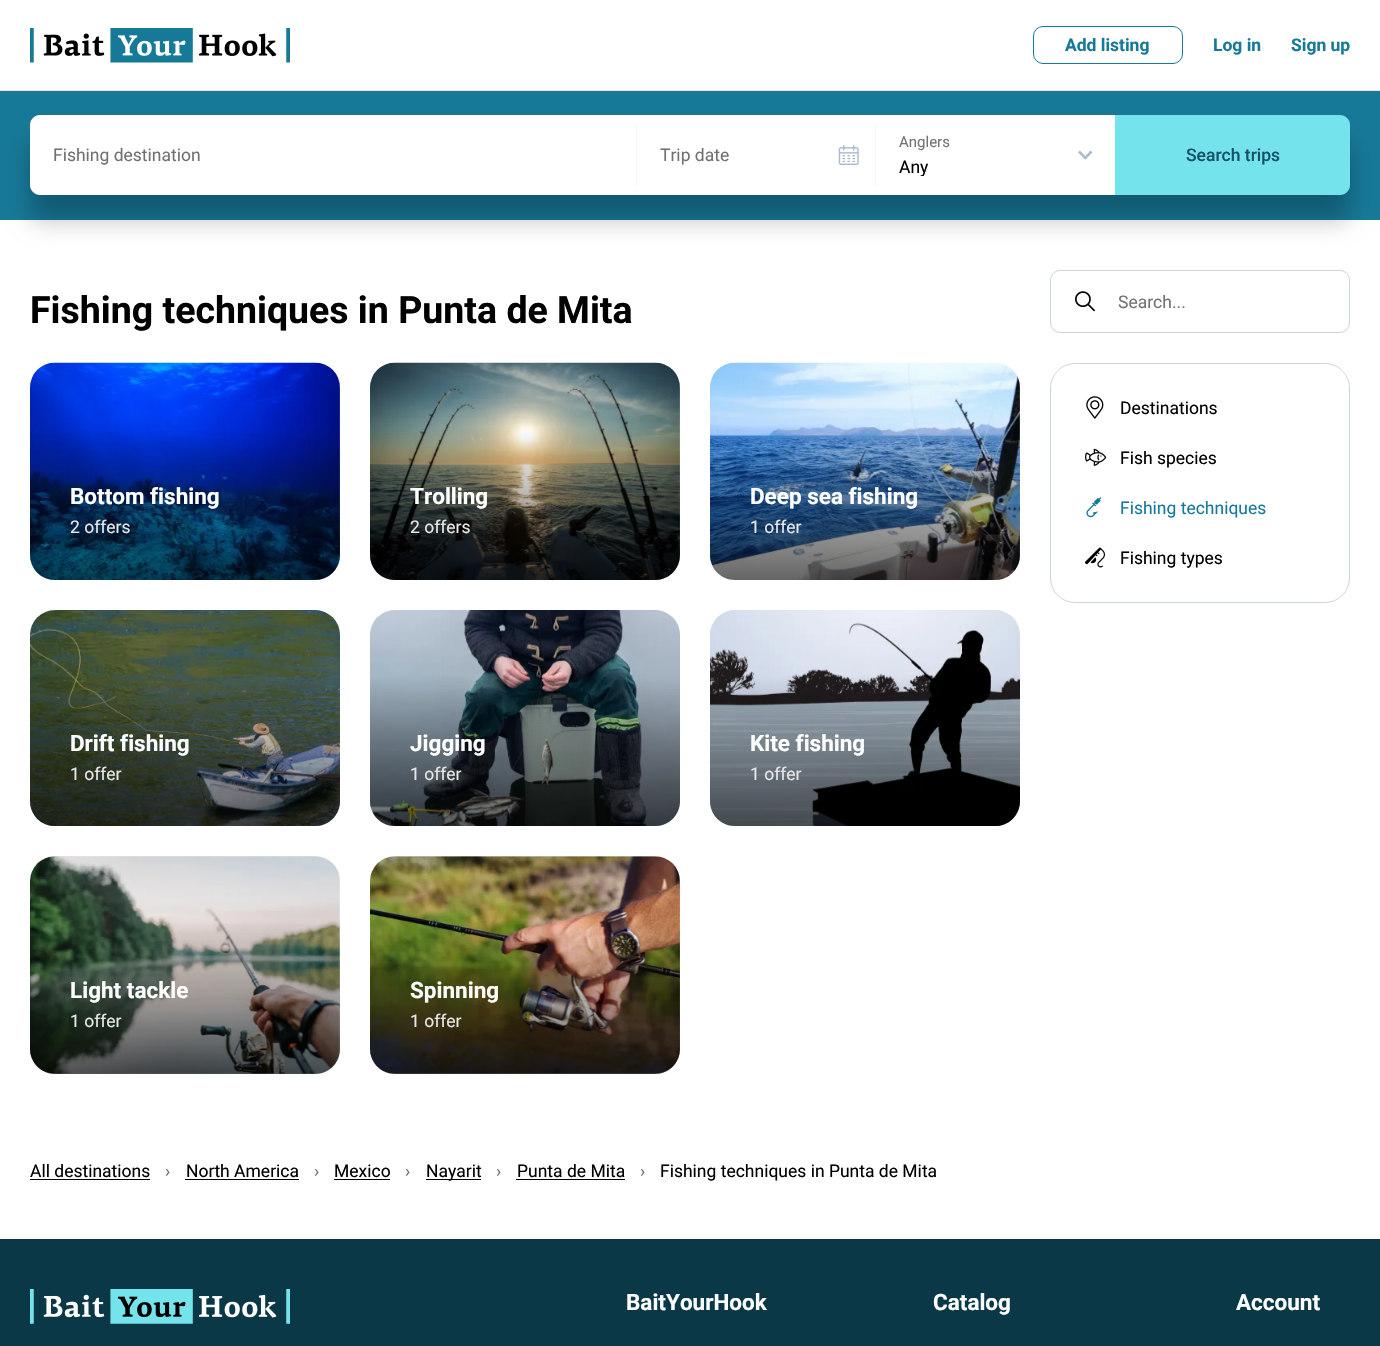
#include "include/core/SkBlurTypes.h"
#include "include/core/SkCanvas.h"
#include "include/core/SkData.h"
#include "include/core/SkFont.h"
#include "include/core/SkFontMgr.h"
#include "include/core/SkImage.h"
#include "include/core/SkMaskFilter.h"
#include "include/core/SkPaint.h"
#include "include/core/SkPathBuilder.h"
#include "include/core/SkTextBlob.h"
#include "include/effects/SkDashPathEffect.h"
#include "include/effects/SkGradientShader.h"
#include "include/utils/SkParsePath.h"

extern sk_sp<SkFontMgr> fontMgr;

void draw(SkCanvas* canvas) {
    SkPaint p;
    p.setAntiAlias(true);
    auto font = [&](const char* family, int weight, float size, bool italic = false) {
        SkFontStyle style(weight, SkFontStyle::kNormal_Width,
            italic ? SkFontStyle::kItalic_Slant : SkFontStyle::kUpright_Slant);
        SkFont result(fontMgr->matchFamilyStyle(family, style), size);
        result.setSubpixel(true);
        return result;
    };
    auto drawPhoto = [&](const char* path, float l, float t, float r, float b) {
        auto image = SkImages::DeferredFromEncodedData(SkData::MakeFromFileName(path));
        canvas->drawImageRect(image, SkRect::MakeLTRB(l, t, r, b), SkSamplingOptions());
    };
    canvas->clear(0xFFFFFFFF);
    p.setColor(0xFFE6E6E6);
    canvas->drawRect(SkRect::MakeLTRB(0, 90, 1380, 91), p);
    drawPhoto("media/1.png", 30, 28, 290, 63);
    p.setStyle(SkPaint::kStroke_Style);
    p.setStrokeWidth(1);
    p.setColor(0xFF177998);
    canvas->drawRoundRect(SkRect::MakeLTRB(1033.5f, 26.5f, 1182.5f, 63.5f), 9.5f, 9.5f, p);
    auto font1 = font("Roboto", 700, 17.5f);
    p.setStyle(SkPaint::kFill_Style);
    {
        const struct { const char* s; float x, y; } items[] = {
            {"Add listing", 1065, 51},
            {"Log in", 1213, 51},
            {"Sign up", 1291, 51},
        };
        for (auto [s, x, y] : items) {
            canvas->drawString(s, x, y, font1, p);
        }
    }
    canvas->drawRect(SkRect::MakeLTRB(0, 91, 1380, 220), p);
    p.setColor(0x40000000);
    p.setMaskFilter(SkMaskFilter::MakeBlur(kNormal_SkBlurStyle, 12.5f));
    canvas->drawRoundRect(SkRect::MakeLTRB(30, 140, 1350, 220), 10, 10, p);
    p.setMaskFilter(nullptr);
    p.setColor(0xFFFFFFFF);
    canvas->drawPath(SkPathBuilder().moveTo(40, 115).lineTo(638, 115).lineTo(638, 195).lineTo(40, 195).cubicTo(34.5f, 195, 30, 190.5f, 30, 185).lineTo(30, 125).cubicTo(30, 119.5f, 34.5f, 115, 40, 115).close().detach(), p);
    auto font2 = font("Roboto", 400, 17.5f);
    p.setColor(0xFF717171);
    canvas->drawString("Fishing destination", 53, 161, font2, p);
    p.setColor(0xFFF5F5F5);
    canvas->drawRect(SkRect::MakeLTRB(636, 124, 637, 186), p);
    p.setColor(0xFFFFFFFF);
    canvas->drawRect(SkRect::MakeLTRB(638, 115, 1115, 195), p);
    p.setColor(0xFF717171);
    canvas->drawString("Trip date", 660, 161, font2, p);
    drawPhoto("media/2.png", 838, 145, 859, 165);
    p.setColor(0xFFF5F5F5);
    canvas->drawRect(SkRect::MakeLTRB(875, 124, 876, 186), p);
    auto font3 = font("Roboto", 400, 15);
    p.setColor(0xFF717171);
    canvas->drawString("Anglers", 899, 147, font3, p);
    canvas->save();
    canvas->clipRect(SkRect::MakeLTRB(899, 156, 1063, 176));
    p.setColor(0xFF000000);
    canvas->drawString("Any", 899, 173, font2, p);
    canvas->restore();
    p.setColor(0xFFABBBCD);
    canvas->drawPath(SkPathBuilder().moveTo(1090.5f, 150.5f).lineTo(1092.5f, 152.5f).lineTo(1085.5f, 159.5f).lineTo(1083.5f, 158).close().detach(), p);
    canvas->drawPath(SkPathBuilder().moveTo(1080, 150.5f).lineTo(1087, 158).lineTo(1085.5f, 159.5f).lineTo(1078, 152.5f).close().detach(), p);
    p.setColor(0xFF74E3EC);
    canvas->drawPath(SkPathBuilder().moveTo(1115, 115).lineTo(1340, 115).cubicTo(1345.5f, 115, 1350, 119.5f, 1350, 125).lineTo(1350, 185).cubicTo(1350, 190.5f, 1345.5f, 195, 1340, 195).lineTo(1115, 195).close().detach(), p);
    auto font4 = font("Roboto", 500, 17.5f);
    p.setColor(0xFF145266);
    canvas->drawString("Search trips", 1186, 161, font4, p);
    auto font5 = font("Roboto", 700, 37.5f);
    p.setColor(0xFF000000);
    canvas->drawString("Fishing techniques in Punta de Mita", 30, 323, font5, p);
    p.setColor(0xFFE6E6E6);
    canvas->drawRoundRect(SkRect::MakeLTRB(30, 363, 340, 580), 25, 25, p);
    drawPhoto("media/3.png", 30, 362, 340, 580);
    {
        const SkColor colors[] = {0x00000000, 0x99000000};
        const float stops[] = {0, 1};
        const SkPoint ends[] = {{185, 428}, {185, 580}};
        p.setShader(SkGradientShader::MakeLinear(ends, colors, stops, 2, SkTileMode::kClamp));
        p.setAlpha(255);
    }
    canvas->drawPath(SkPathBuilder().moveTo(30, 428).lineTo(340, 428).lineTo(340, 555).cubicTo(340, 569, 329, 580, 315, 580).lineTo(55, 580).cubicTo(41, 580, 30, 569, 30, 555).close().detach(), p);
    auto font6 = font("Roboto", 700, 22.5f);
    p.setShader(nullptr);
    p.setColor(0xFFFFFFFF);
    canvas->drawString("Bottom fishing", 70, 504, font6, p);
    p.setColor(0xFFE6E6E6);
    canvas->drawString("2 offers", 70, 533, font2, p);
    canvas->drawRoundRect(SkRect::MakeLTRB(370, 363, 680, 580), 25, 25, p);
    drawPhoto("media/4.png", 370, 362, 680, 580);
    {
        const SkColor colors[] = {0x00000000, 0x99000000};
        const float stops[] = {0, 1};
        const SkPoint ends[] = {{525, 428}, {525, 580}};
        p.setShader(SkGradientShader::MakeLinear(ends, colors, stops, 2, SkTileMode::kClamp));
        p.setAlpha(255);
    }
    canvas->drawPath(SkPathBuilder().moveTo(370, 428).lineTo(680, 428).lineTo(680, 555).cubicTo(680, 569, 669, 580, 655, 580).lineTo(395, 580).cubicTo(381, 580, 370, 569, 370, 555).close().detach(), p);
    p.setShader(nullptr);
    p.setColor(0xFFFFFFFF);
    canvas->drawString("Trolling", 410, 504, font6, p);
    p.setColor(0xFFE6E6E6);
    canvas->drawString("2 offers", 410, 533, font2, p);
    canvas->drawRoundRect(SkRect::MakeLTRB(710, 363, 1020, 580), 25, 25, p);
    drawPhoto("media/5.png", 710, 362, 1020, 580);
    {
        const SkColor colors[] = {0x00000000, 0x99000000};
        const float stops[] = {0, 1};
        const SkPoint ends[] = {{865, 428}, {865, 580}};
        p.setShader(SkGradientShader::MakeLinear(ends, colors, stops, 2, SkTileMode::kClamp));
        p.setAlpha(255);
    }
    canvas->drawPath(SkPathBuilder().moveTo(710, 428).lineTo(1020, 428).lineTo(1020, 555).cubicTo(1020, 569, 1009, 580, 995, 580).lineTo(735, 580).cubicTo(721, 580, 710, 569, 710, 555).close().detach(), p);
    p.setShader(nullptr);
    p.setColor(0xFFFFFFFF);
    canvas->drawString("Deep sea fishing", 750, 504, font6, p);
    p.setColor(0xFFE6E6E6);
    canvas->drawString("1 offer", 750, 533, font2, p);
    canvas->drawRoundRect(SkRect::MakeLTRB(30, 610, 340, 826), 25, 25, p);
    drawPhoto("media/6.png", 30, 610, 340, 826);
    {
        const SkColor colors[] = {0x00000000, 0x99000000};
        const float stops[] = {0, 1};
        const SkPoint ends[] = {{185, 675}, {185, 826}};
        p.setShader(SkGradientShader::MakeLinear(ends, colors, stops, 2, SkTileMode::kClamp));
        p.setAlpha(255);
    }
    canvas->drawPath(SkPathBuilder().moveTo(30, 675).lineTo(340, 675).lineTo(340, 801).cubicTo(340, 815, 329, 826, 315, 826).lineTo(55, 826).cubicTo(41, 826, 30, 815, 30, 801).close().detach(), p);
    p.setShader(nullptr);
    p.setColor(0xFFFFFFFF);
    canvas->drawString("Drift fishing", 70, 751, font6, p);
    p.setColor(0xFFE6E6E6);
    canvas->drawString("1 offer", 70, 780, font2, p);
    canvas->drawRoundRect(SkRect::MakeLTRB(370, 610, 680, 826), 25, 25, p);
    drawPhoto("media/7.png", 370, 610, 680, 826);
    {
        const SkColor colors[] = {0x00000000, 0x99000000};
        const float stops[] = {0, 1};
        const SkPoint ends[] = {{525, 675}, {525, 826}};
        p.setShader(SkGradientShader::MakeLinear(ends, colors, stops, 2, SkTileMode::kClamp));
        p.setAlpha(255);
    }
    canvas->drawPath(SkPathBuilder().moveTo(370, 675).lineTo(680, 675).lineTo(680, 801).cubicTo(680, 815, 669, 826, 655, 826).lineTo(395, 826).cubicTo(381, 826, 370, 815, 370, 801).close().detach(), p);
    p.setShader(nullptr);
    p.setColor(0xFFFFFFFF);
    canvas->drawString("Jigging", 410, 751, font6, p);
    p.setColor(0xFFE6E6E6);
    canvas->drawString("1 offer", 410, 780, font2, p);
    canvas->drawRoundRect(SkRect::MakeLTRB(710, 610, 1020, 826), 25, 25, p);
    drawPhoto("media/8.png", 710, 610, 1020, 826);
    {
        const SkColor colors[] = {0x00000000, 0x99000000};
        const float stops[] = {0, 1};
        const SkPoint ends[] = {{865, 675}, {865, 826}};
        p.setShader(SkGradientShader::MakeLinear(ends, colors, stops, 2, SkTileMode::kClamp));
        p.setAlpha(255);
    }
    canvas->drawPath(SkPathBuilder().moveTo(710, 675).lineTo(1020, 675).lineTo(1020, 801).cubicTo(1020, 815, 1009, 826, 995, 826).lineTo(735, 826).cubicTo(721, 826, 710, 815, 710, 801).close().detach(), p);
    p.setShader(nullptr);
    p.setColor(0xFFFFFFFF);
    canvas->drawString("Kite fishing", 750, 751, font6, p);
    p.setColor(0xFFE6E6E6);
    canvas->drawString("1 offer", 750, 780, font2, p);
    canvas->drawRoundRect(SkRect::MakeLTRB(30, 856, 340, 1074), 25, 25, p);
    drawPhoto("media/9.png", 30, 856, 340, 1074);
    {
        const SkColor colors[] = {0x00000000, 0x99000000};
        const float stops[] = {0, 1};
        const SkPoint ends[] = {{185, 921}, {185, 1074}};
        p.setShader(SkGradientShader::MakeLinear(ends, colors, stops, 2, SkTileMode::kClamp));
        p.setAlpha(255);
    }
    canvas->drawPath(SkPathBuilder().moveTo(30, 921).lineTo(340, 921).lineTo(340, 1049).cubicTo(340, 1063, 329, 1074, 315, 1074).lineTo(55, 1074).cubicTo(41, 1074, 30, 1063, 30, 1049).close().detach(), p);
    p.setShader(nullptr);
    p.setColor(0xFFFFFFFF);
    canvas->drawString("Light tackle", 70, 998, font6, p);
    p.setColor(0xFFE6E6E6);
    canvas->drawString("1 offer", 70, 1027, font2, p);
    canvas->drawRoundRect(SkRect::MakeLTRB(370, 856, 680, 1074), 25, 25, p);
    drawPhoto("media/10.png", 370, 856, 680, 1074);
    {
        const SkColor colors[] = {0x00000000, 0x99000000};
        const float stops[] = {0, 1};
        const SkPoint ends[] = {{525, 921}, {525, 1074}};
        p.setShader(SkGradientShader::MakeLinear(ends, colors, stops, 2, SkTileMode::kClamp));
        p.setAlpha(255);
    }
    canvas->drawPath(SkPathBuilder().moveTo(370, 921).lineTo(680, 921).lineTo(680, 1049).cubicTo(680, 1063, 669, 1074, 655, 1074).lineTo(395, 1074).cubicTo(381, 1074, 370, 1063, 370, 1049).close().detach(), p);
    p.setShader(nullptr);
    p.setColor(0xFFFFFFFF);
    canvas->drawString("Spinning", 410, 998, font6, p);
    p.setColor(0xFFE6E6E6);
    canvas->drawString("1 offer", 410, 1027, font2, p);
    p.setColor(0xFF000000);
    canvas->drawString("All destinations", 30, 1177, font2, p);
    canvas->drawRect(SkRect::MakeLTRB(30, 1179, 150, 1180), p);
    p.setColor(0xFF717171);
    canvas->drawString("›", 165, 1177, font2, p);
    p.setColor(0xFF000000);
    canvas->drawString("North America", 186, 1177, font2, p);
    canvas->drawRect(SkRect::MakeLTRB(185, 1179, 299, 1180), p);
    p.setColor(0xFF717171);
    canvas->drawString("›", 314, 1177, font2, p);
    p.setColor(0xFF000000);
    canvas->drawString("Mexico", 334, 1177, font2, p);
    canvas->drawRect(SkRect::MakeLTRB(334, 1179, 390, 1180), p);
    p.setColor(0xFF717171);
    canvas->drawString("›", 405, 1177, font2, p);
    p.setColor(0xFF000000);
    canvas->drawRect(SkRect::MakeLTRB(426, 1179, 481, 1180), p);
    canvas->drawString("Nayarit", 426, 1177, font2, p);
    p.setColor(0xFF717171);
    canvas->drawString("›", 496, 1177, font2, p);
    p.setColor(0xFF000000);
    canvas->drawString("Punta de Mita", 517, 1177, font2, p);
    canvas->drawRect(SkRect::MakeLTRB(516, 1179, 625, 1180), p);
    p.setColor(0xFF717171);
    canvas->drawString("›", 640, 1177, font2, p);
    p.setColor(0xFF000000);
    canvas->drawString("Fishing techniques in Punta de Mita", 660, 1177, font2, p);
    p.setStyle(SkPaint::kStroke_Style);
    p.setColor(0xFFCBD5E0);
    canvas->drawRoundRect(SkRect::MakeLTRB(1050.5f, 270.5f, 1349.5f, 332.5f), 9.5f, 9.5f, p);
    drawPhoto("media/11.png", 1075, 291, 1095, 312);
    p.setStyle(SkPaint::kFill_Style);
    p.setColor(0xFF717171);
    canvas->drawString("Search...", 1118, 308, font2, p);
    p.setStyle(SkPaint::kStroke_Style);
    p.setColor(0xFFCBD5E0);
    canvas->drawRoundRect(SkRect::MakeLTRB(1050.5f, 363.5f, 1349.5f, 602.5f), 24.5f, 24.5f, p);
    drawPhoto("media/12.png", 1086, 396, 1104, 419);
    p.setStyle(SkPaint::kFill_Style);
    p.setColor(0xFF000000);
    canvas->drawString("Destinations", 1120, 414, font2, p);
    drawPhoto("media/13.png", 1085, 448, 1107, 466);
    canvas->drawString("Fish species", 1120, 464, font2, p);
    drawPhoto("media/14.png", 1086, 497, 1102, 518);
    p.setColor(0xFF177998);
    canvas->drawString("Fishing techniques", 1120, 514, font2, p);
    drawPhoto("media/15.png", 1085, 547, 1105, 568);
    p.setColor(0xFF000000);
    canvas->drawString("Fishing types", 1120, 564, font2, p);
    p.setColor(0xFF0A3846);
    canvas->drawRect(SkRect::MakeLTRB(0, 1239, 1380, 1346), p);
    drawPhoto("media/16.png", 30, 1289, 290, 1324);
    p.setColor(0xFFFFFFFF);
    {
        const struct { const char* s; float x, y; } items[] = {
            {"BaitYourHook", 626, 1310},
            {"Catalog", 933, 1310},
            {"Account", 1236, 1310},
        };
        for (auto [s, x, y] : items) {
            canvas->drawString(s, x, y, font6, p);
        }
    }
}
